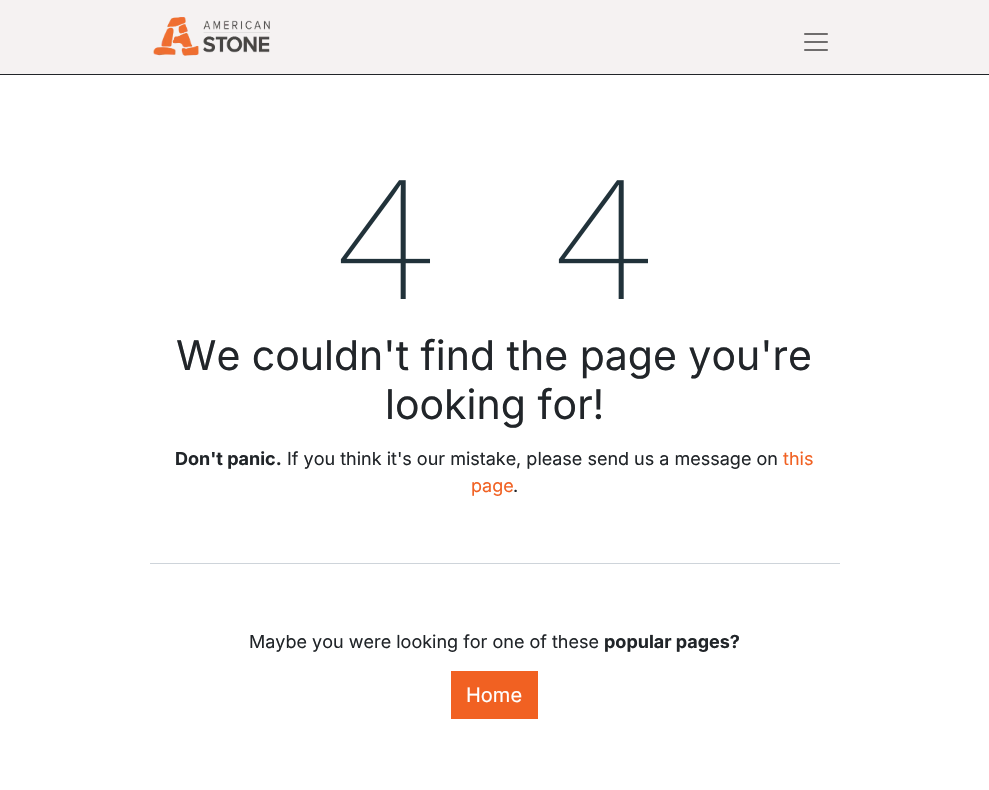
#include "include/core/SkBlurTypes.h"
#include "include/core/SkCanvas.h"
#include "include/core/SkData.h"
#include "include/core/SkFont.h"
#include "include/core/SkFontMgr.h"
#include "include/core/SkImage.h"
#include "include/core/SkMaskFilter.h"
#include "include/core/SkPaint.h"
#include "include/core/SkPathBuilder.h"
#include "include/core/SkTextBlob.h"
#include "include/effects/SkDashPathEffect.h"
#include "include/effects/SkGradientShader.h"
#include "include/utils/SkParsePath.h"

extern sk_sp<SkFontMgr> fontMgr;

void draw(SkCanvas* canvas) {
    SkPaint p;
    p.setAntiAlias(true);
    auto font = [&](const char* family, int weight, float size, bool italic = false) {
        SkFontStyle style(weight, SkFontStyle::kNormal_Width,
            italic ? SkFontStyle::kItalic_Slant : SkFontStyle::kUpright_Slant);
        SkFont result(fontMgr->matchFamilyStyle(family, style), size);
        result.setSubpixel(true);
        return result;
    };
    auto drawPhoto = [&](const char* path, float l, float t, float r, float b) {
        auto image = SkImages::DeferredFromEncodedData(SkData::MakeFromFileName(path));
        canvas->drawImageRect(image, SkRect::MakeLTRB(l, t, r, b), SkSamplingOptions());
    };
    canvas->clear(0xFFFFFFFF);
    p.setColor(0xFFF5F2F2);
    canvas->drawRect(SkRect::MakeLTRB(0, 0, 989, 74), p);
    p.setColor(0xFF212529);
    canvas->drawRect(SkRect::MakeLTRB(0, 74, 989, 75), p);
    drawPhoto("media/1.png", 153, 17, 270, 56);
    drawPhoto("media/2.png", 804, 33, 828, 51);
    drawPhoto("media/3.png", 340, 180, 648, 299);
    auto font1 = font("Inter", 400, 41);
    canvas->drawString("We couldn't find the page you're", 176, 370, font1, p);
    canvas->drawString("looking for!", 385, 419, font1, p);
    auto font2 = font("Inter", 700, 18);
    canvas->drawString("Don't panic.", 175, 465, font2, p);
    auto font3 = font("Inter", 400, 18);
    canvas->drawString("If you think it's our mistake, please send us a message on", 287, 465, font3, p);
    p.setColor(0xFFF16122);
    canvas->drawString("this", 783, 465, font3, p);
    canvas->drawString("page", 471, 492, font3, p);
    p.setColor(0xFF212529);
    canvas->drawString(".", 513, 492, font3, p);
    p.setColor(0xFFCED4DA);
    canvas->drawRect(SkRect::MakeLTRB(150, 563, 840, 564), p);
    p.setColor(0xFF212529);
    canvas->drawString("Maybe you were looking for one of these", 249, 648, font3, p);
    canvas->drawString("popular pages?", 604, 648, font2, p);
    p.setColor(0xFFF16122);
    canvas->drawRect(SkRect::MakeLTRB(451, 671, 538, 719), p);
    auto font4 = font("Inter", 400, 20);
    p.setColor(0xFFFFFFFF);
    canvas->drawString("Home", 466, 702, font4, p);
}
